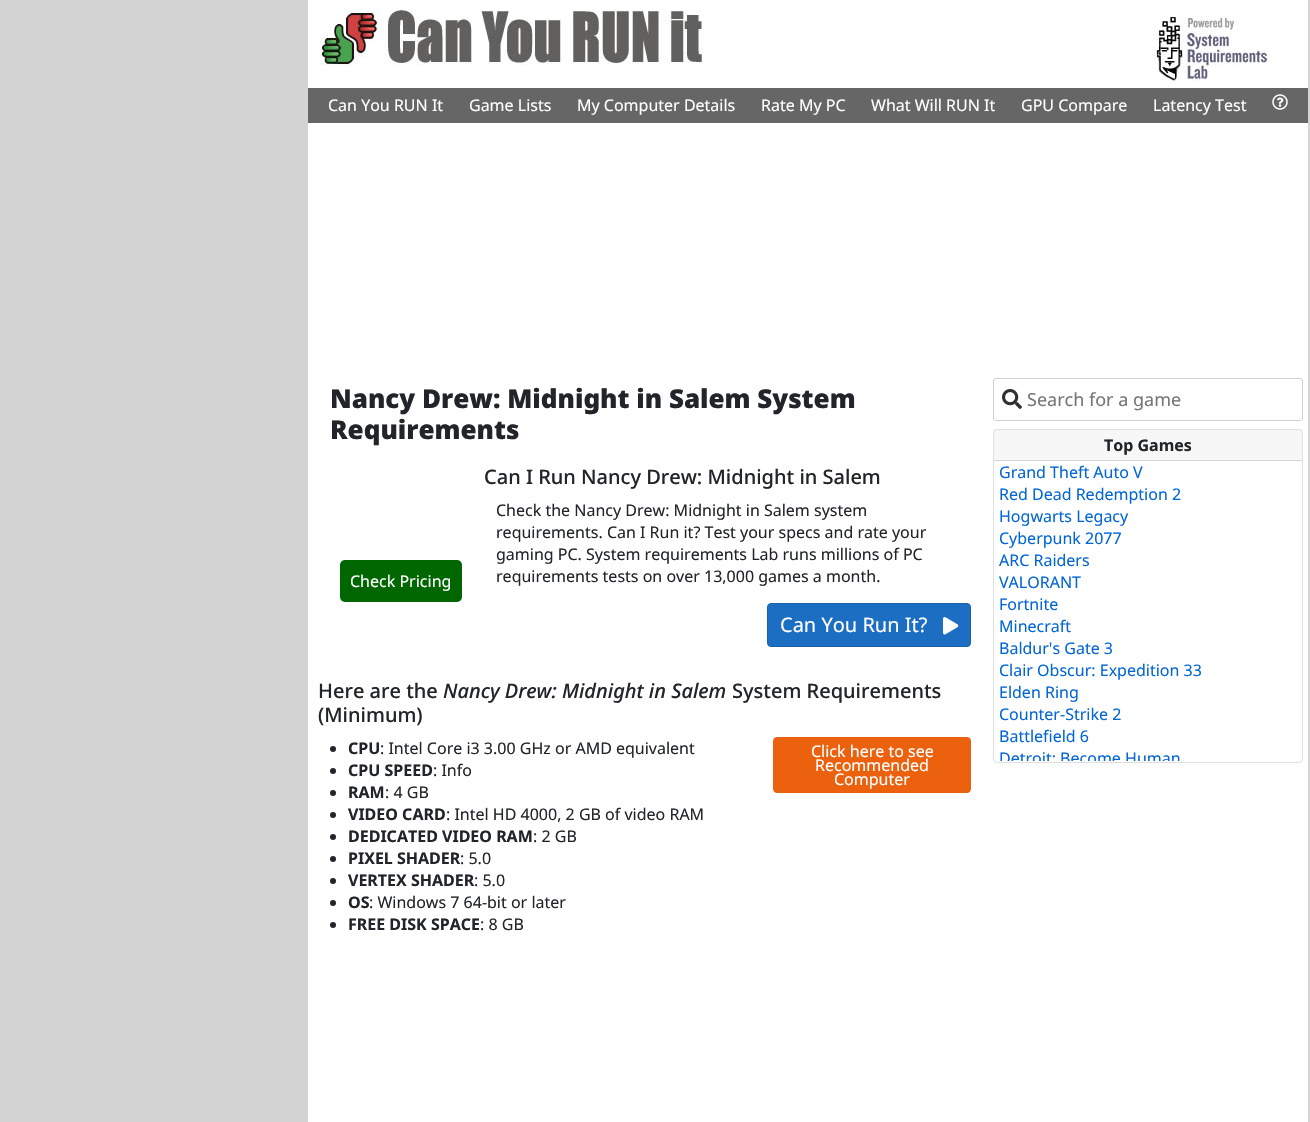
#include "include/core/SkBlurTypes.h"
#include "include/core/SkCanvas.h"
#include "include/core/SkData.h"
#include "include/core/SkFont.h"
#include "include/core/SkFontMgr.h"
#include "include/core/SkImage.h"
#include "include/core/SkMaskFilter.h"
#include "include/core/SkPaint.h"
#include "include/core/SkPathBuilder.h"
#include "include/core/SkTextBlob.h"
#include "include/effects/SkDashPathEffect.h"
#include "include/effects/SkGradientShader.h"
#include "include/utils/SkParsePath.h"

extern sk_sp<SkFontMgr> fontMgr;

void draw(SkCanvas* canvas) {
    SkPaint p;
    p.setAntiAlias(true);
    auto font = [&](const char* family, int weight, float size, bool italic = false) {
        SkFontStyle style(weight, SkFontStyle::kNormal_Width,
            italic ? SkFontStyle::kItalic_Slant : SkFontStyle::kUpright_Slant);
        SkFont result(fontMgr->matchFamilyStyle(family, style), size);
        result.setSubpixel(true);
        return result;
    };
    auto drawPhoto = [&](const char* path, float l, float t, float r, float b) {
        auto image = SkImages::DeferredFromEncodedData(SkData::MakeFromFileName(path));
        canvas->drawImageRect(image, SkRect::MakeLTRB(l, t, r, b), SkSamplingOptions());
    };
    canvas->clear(0xFFFFFFFF);
    p.setColor(0xFFD3D3D3);
    canvas->drawRect(SkRect::MakeLTRB(0, 0, 308, 1122), p);
    drawPhoto("media/1.png", 320, 10, 704, 66);
    drawPhoto("media/2.png", 1153, 10, 1268, 82);
    p.setColor(0xFF666666);
    canvas->drawRect(SkRect::MakeLTRB(308, 88, 1308, 123), p);
    auto font1 = font("Noto Sans", 400, 16);
    p.setColor(0xFFFFFFFF);
    {
        const struct { const char* s; float x, y; } items[] = {
            {"Can You RUN It", 328, 111},
            {"Game Lists", 469, 111},
            {"My Computer Details", 577, 111},
            {"Rate My PC", 761, 111},
            {"What Will RUN It", 871, 111},
            {"GPU Compare", 1021, 111},
            {"Latency Test", 1153, 111},
        };
        for (auto [s, x, y] : items) {
            canvas->drawString(s, x, y, font1, p);
        }
    }
    drawPhoto("media/3.png", 1272, 94, 1288, 110);
    auto font2 = font("Noto Sans", 900, 26);
    p.setColor(0xFF212529);
    canvas->drawString("Nancy Drew: Midnight in Salem System", 330, 408, font2, p);
    canvas->drawString("Requirements", 330, 439, font2, p);
    p.setColor(0xFF006600);
    canvas->drawRoundRect(SkRect::MakeLTRB(340, 560, 462, 602), 5, 5, p);
    p.setColor(0xFFFFFFFF);
    canvas->drawString("Check Pricing", 350, 587, font1, p);
    auto font3 = font("Noto Sans", 500, 20);
    p.setColor(0xFF212529);
    canvas->drawString("Can I Run Nancy Drew: Midnight in Salem", 484, 484, font3, p);
    {
        const struct { const char* s; float x, y; } items[] = {
            {"Check the Nancy Drew: Midnight in Salem system", 496, 516},
            {"requirements. Can I Run it? Test your specs and rate your", 496, 538},
            {"gaming PC. System requirements Lab runs millions of PC", 496, 560},
            {"requirements tests on over 13,000 games a month.", 496, 582},
        };
        for (auto [s, x, y] : items) {
            canvas->drawString(s, x, y, font1, p);
        }
    }
    p.setColor(0xFF1B6EC2);
    canvas->drawRoundRect(SkRect::MakeLTRB(767.5f, 603.5f, 970.5f, 646.5f), 3.5f, 3.5f, p);
    p.setStyle(SkPaint::kStroke_Style);
    p.setStrokeWidth(1);
    p.setColor(0xFF1861AC);
    canvas->drawRoundRect(SkRect::MakeLTRB(767.5f, 603.5f, 970.5f, 646.5f), 3.5f, 3.5f, p);
    auto font4 = font("Noto Sans", 400, 20);
    p.setStyle(SkPaint::kFill_Style);
    p.setColor(0xFFFFFFFF);
    canvas->drawString("Can You Run It?", 780, 632, font4, p);
    drawPhoto("media/4.png", 943, 617, 959, 635);
    p.setColor(0xFF212529);
    canvas->drawString("Here are the", 318, 698, font3, p);
    auto font5 = font("Noto Sans", 500, 20, true);
    canvas->drawString("Nancy Drew: Midnight in Salem", 443, 698, font5, p);
    canvas->drawString("System Requirements", 732, 698, font3, p);
    canvas->drawString("(Minimum)", 318, 722, font3, p);
    canvas->drawCircle(333, 749, 3, p);
    auto font6 = font("Noto Sans", 700, 16);
    canvas->drawString("CPU", 348, 754, font6, p);
    canvas->drawString(": Intel Core i3 3.00 GHz or AMD equivalent", 380, 754, font1, p);
    canvas->drawCircle(333, 771, 3, p);
    canvas->drawString("CPU SPEED", 348, 776, font6, p);
    canvas->drawString(": Info", 433, 776, font1, p);
    canvas->drawCircle(333, 793, 3, p);
    canvas->drawString("RAM", 348, 798, font6, p);
    canvas->drawString(": 4 GB", 385, 798, font1, p);
    canvas->drawCircle(333, 815, 3, p);
    canvas->drawString("VIDEO CARD", 348, 820, font6, p);
    canvas->drawString(": Intel HD 4000, 2 GB of video RAM", 446, 820, font1, p);
    canvas->drawCircle(333, 837, 3, p);
    canvas->drawString("DEDICATED VIDEO RAM", 348, 842, font6, p);
    canvas->drawString(": 2 GB", 533, 842, font1, p);
    canvas->drawCircle(333, 859, 3, p);
    canvas->drawString("PIXEL SHADER", 348, 864, font6, p);
    canvas->drawString(": 5.0", 460, 864, font1, p);
    canvas->drawCircle(333, 881, 3, p);
    canvas->drawString("VERTEX SHADER", 348, 886, font6, p);
    canvas->drawString(": 5.0", 474, 886, font1, p);
    canvas->drawCircle(333, 903, 3, p);
    canvas->drawString("OS", 348, 908, font6, p);
    canvas->drawString(": Windows 7 64-bit or later", 369, 908, font1, p);
    canvas->drawCircle(333, 925, 3, p);
    canvas->drawString("FREE DISK SPACE", 348, 930, font6, p);
    canvas->drawString(": 8 GB", 480, 930, font1, p);
    p.setColor(0xFFEC610D);
    canvas->drawRoundRect(SkRect::MakeLTRB(773.5f, 737.5f, 970.5f, 792.5f), 3.5f, 3.5f, p);
    p.setStyle(SkPaint::kStroke_Style);
    canvas->drawRoundRect(SkRect::MakeLTRB(773.5f, 737.5f, 970.5f, 792.5f), 3.5f, 3.5f, p);
    p.setStyle(SkPaint::kFill_Style);
    p.setColor(0xFFFFFFFF);
    {
        const struct { const char* s; float x, y; } items[] = {
            {"Click here to see", 811, 757},
            {"Recommended", 815, 771},
            {"Computer", 834, 785},
        };
        for (auto [s, x, y] : items) {
            canvas->drawString(s, x, y, font1, p);
        }
    }
    p.setStyle(SkPaint::kStroke_Style);
    p.setColor(0xFFD0D0D0);
    canvas->drawRoundRect(SkRect::MakeLTRB(993.5f, 378.5f, 1302.5f, 420.5f), 2.5f, 2.5f, p);
    drawPhoto("media/5.png", 1002, 389, 1022, 409);
    auto font7 = font("Noto Sans", 400, 18);
    p.setStyle(SkPaint::kFill_Style);
    p.setColor(0xFF757575);
    canvas->drawString("Search for a game", 1027, 406, font7, p);
    p.setStyle(SkPaint::kStroke_Style);
    p.setColor(0xFFDFDFDF);
    canvas->drawRoundRect(SkRect::MakeLTRB(993.5f, 429.5f, 1302.5f, 762.5f), 3.5f, 3.5f, p);
    p.setStyle(SkPaint::kFill_Style);
    p.setColor(0x08000000);
    canvas->drawRect(SkRect::MakeLTRB(994, 430, 1302, 460), p);
    p.setColor(0xFFD8D8D8);
    canvas->drawRect(SkRect::MakeLTRB(994, 460, 1302, 461), p);
    p.setColor(0xFF212529);
    canvas->drawString("Top Games", 1104, 451, font6, p);
    p.setColor(0xFF0366D6);
    {
        const struct { const char* s; float x, y; } items[] = {
            {"Grand Theft Auto V", 999, 478},
            {"Red Dead Redemption 2", 999, 500},
            {"Hogwarts Legacy", 999, 522},
            {"Cyberpunk 2077", 999, 544},
            {"ARC Raiders", 999, 566},
            {"VALORANT", 999, 588},
            {"Fortnite", 999, 610},
            {"Minecraft", 999, 632},
            {"Baldur's Gate 3", 999, 654},
            {"Clair Obscur: Expedition 33", 999, 676},
            {"Elden Ring", 999, 698},
            {"Counter-Strike 2", 999, 720},
            {"Battlefield 6", 999, 742},
        };
        for (auto [s, x, y] : items) {
            canvas->drawString(s, x, y, font1, p);
        }
    }
    canvas->save();
    canvas->clipRect(SkRect::MakeLTRB(999, 461, 1302, 761));
    canvas->drawString("Detroit: Become Human", 999, 764, font1, p);
    canvas->restore();
    p.setColor(0xFFD3D3D3);
    canvas->drawRect(SkRect::MakeLTRB(1308, 0, 1310, 1122), p);
}
